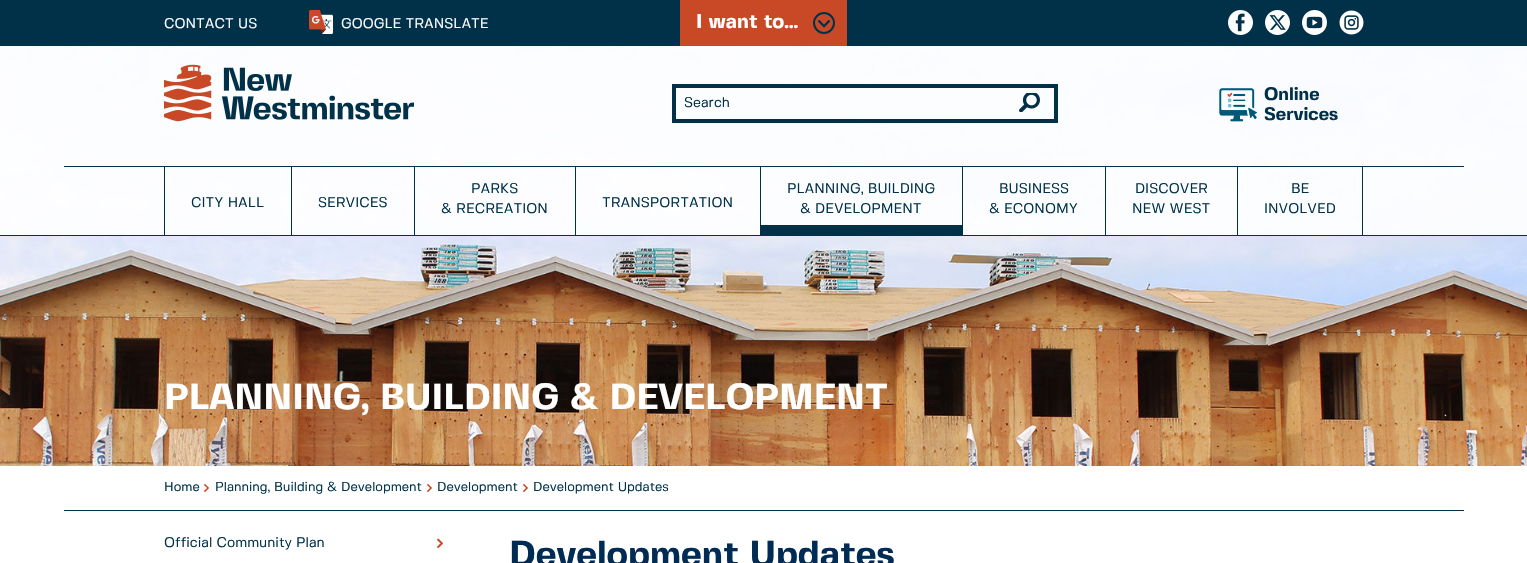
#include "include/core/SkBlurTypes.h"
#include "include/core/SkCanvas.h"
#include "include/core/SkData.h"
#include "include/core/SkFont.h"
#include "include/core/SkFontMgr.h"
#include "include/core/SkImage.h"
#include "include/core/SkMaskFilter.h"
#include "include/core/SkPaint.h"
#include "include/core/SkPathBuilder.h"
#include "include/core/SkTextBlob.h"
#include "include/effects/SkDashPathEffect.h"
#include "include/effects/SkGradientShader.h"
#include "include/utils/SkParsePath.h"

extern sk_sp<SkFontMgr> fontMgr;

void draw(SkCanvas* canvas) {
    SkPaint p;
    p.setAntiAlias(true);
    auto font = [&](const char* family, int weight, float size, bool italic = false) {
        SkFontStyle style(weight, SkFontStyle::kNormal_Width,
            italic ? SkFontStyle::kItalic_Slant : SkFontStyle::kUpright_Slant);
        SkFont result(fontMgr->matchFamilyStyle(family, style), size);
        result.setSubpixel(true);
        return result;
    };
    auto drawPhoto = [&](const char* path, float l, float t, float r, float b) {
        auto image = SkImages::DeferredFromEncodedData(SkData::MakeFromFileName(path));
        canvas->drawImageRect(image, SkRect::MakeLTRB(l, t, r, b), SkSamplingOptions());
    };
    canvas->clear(0xFFFFFFFF);
    p.setColor(0xFF003149);
    canvas->drawRect(SkRect::MakeLTRB(0, 0, 1527, 46), p);
    auto font1 = font("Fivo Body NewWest", 400, 14);
    p.setColor(0xFFFFFFFF);
    canvas->drawString("CONTACT US", 164, 28, font1, p);
    drawPhoto("media/1.png", 309, 10, 333, 34);
    canvas->drawString("GOOGLE TRANSLATE", 341, 28, font1, p);
    p.setColor(0xFFC94927);
    canvas->drawRect(SkRect::MakeLTRB(680, 0, 847, 46), p);
    auto font2 = font("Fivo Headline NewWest", 700, 20);
    p.setColor(0xFFFFFFFF);
    canvas->drawString("I want to...", 696, 28, font2, p);
    drawPhoto("media/2.png", 818, 20, 830, 28);
    p.setStyle(SkPaint::kStroke_Style);
    p.setStrokeWidth(2);
    p.setColor(0xFF003149);
    canvas->drawCircle(824, 23, 10, p);
    drawPhoto("media/3.png", 1228, 10, 1253, 35);
    drawPhoto("media/4.png", 1265, 10, 1290, 35);
    drawPhoto("media/5.png", 1302, 10, 1327, 35);
    drawPhoto("media/6.png", 1339, 10, 1364, 35);
    drawPhoto("media/10.png", 0, 46, 1527, 466);
    p.setStyle(SkPaint::kFill_Style);
    p.setColor(0xE6FFFFFF);
    canvas->drawRect(SkRect::MakeLTRB(0, 46, 1527, 235), p);
    p.setColor(0xFF003149);
    canvas->drawRect(SkRect::MakeLTRB(0, 235, 1527, 236), p);
    drawPhoto("media/7.png", 164, 64, 414, 122);
    p.setStyle(SkPaint::kStroke_Style);
    p.setStrokeWidth(4);
    canvas->drawRect(SkRect::MakeLTRB(674, 86, 1056, 121), p);
    p.setStyle(SkPaint::kFill_Style);
    canvas->drawString("Search", 684, 107, font1, p);
    drawPhoto("media/8.png", 1019, 93, 1040, 112);
    drawPhoto("media/9.png", 1219, 88, 1257, 122);
    auto font3 = font("Fivo Headline NewWest", 700, 18);
    canvas->drawString("Online", 1264, 100, font3, p);
    canvas->drawString("Services", 1264, 120, font3, p);
    {
        const struct { float l, t, r, b; SkColor color; } items[] = {
            {64, 166, 1464, 167, 0xFF003149},
            {291, 167, 292, 235, 0xFF003149},
            {164, 167, 165, 235, 0xFF003149},
        };
        for (auto [l, t, r, b, color] : items) {
            p.setColor(color);
            canvas->drawRect(SkRect::MakeLTRB(l, t, r, b), p);
        }
    }
    canvas->drawString("CITY HALL", 191, 207, font1, p);
    canvas->drawRect(SkRect::MakeLTRB(414, 167, 415, 235), p);
    canvas->drawString("SERVICES", 318, 207, font1, p);
    canvas->drawRect(SkRect::MakeLTRB(575, 167, 576, 235), p);
    canvas->drawString("PARKS", 471, 193, font1, p);
    canvas->drawString("& RECREATION", 441, 213, font1, p);
    canvas->drawRect(SkRect::MakeLTRB(760, 167, 761, 235), p);
    canvas->drawString("TRANSPORTATION", 602, 207, font1, p);
    canvas->drawRect(SkRect::MakeLTRB(962, 167, 963, 235), p);
    canvas->drawRect(SkRect::MakeLTRB(761, 225, 962, 235), p);
    canvas->drawString("PLANNING, BUILDING", 787, 193, font1, p);
    canvas->drawString("& DEVELOPMENT", 800, 213, font1, p);
    canvas->drawRect(SkRect::MakeLTRB(1105, 167, 1106, 235), p);
    canvas->drawString("BUSINESS", 999, 193, font1, p);
    canvas->drawString("& ECONOMY", 989, 213, font1, p);
    canvas->drawRect(SkRect::MakeLTRB(1237, 167, 1238, 235), p);
    canvas->drawString("DISCOVER", 1135, 193, font1, p);
    canvas->drawString("NEW WEST", 1132, 213, font1, p);
    canvas->drawRect(SkRect::MakeLTRB(1362, 167, 1363, 235), p);
    canvas->drawString("BE", 1291, 193, font1, p);
    canvas->drawString("INVOLVED", 1264, 213, font1, p);
    auto font4 = font("Fivo Headline NewWest", 700, 36);
    p.setColor(0xFFFFFFFF);
    canvas->drawString("PLANNING, BUILDING & DEVELOPMENT", 164, 409, font4, p);
    p.setColor(0xFF003149);
    canvas->drawRect(SkRect::MakeLTRB(64, 510, 1464, 511), p);
    auto font5 = font("Fivo Body NewWest", 400, 13);
    canvas->drawString("Home", 164, 491, font5, p);
    drawPhoto("media/11.png", 204, 484, 209, 492);
    canvas->drawString("Planning, Building & Development", 215, 491, font5, p);
    drawPhoto("media/11.png", 427, 484, 432, 492);
    canvas->drawString("Development", 437, 491, font5, p);
    drawPhoto("media/11.png", 523, 484, 528, 492);
    canvas->drawString("Development Updates", 533, 491, font5, p);
    drawPhoto("media/12.png", 437, 538, 443, 548);
    canvas->drawString("Official Community Plan", 164, 547, font1, p);
    p.setColor(0xFF002B54);
    canvas->drawString("Development Updates", 509, 566, font4, p);
}
